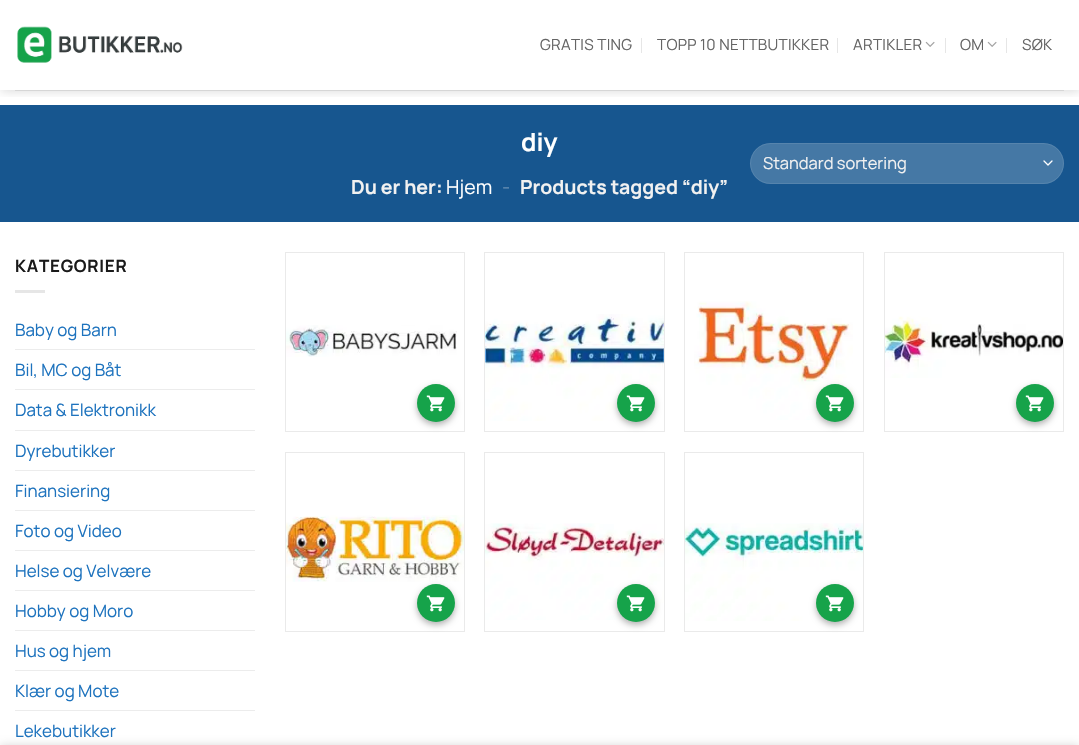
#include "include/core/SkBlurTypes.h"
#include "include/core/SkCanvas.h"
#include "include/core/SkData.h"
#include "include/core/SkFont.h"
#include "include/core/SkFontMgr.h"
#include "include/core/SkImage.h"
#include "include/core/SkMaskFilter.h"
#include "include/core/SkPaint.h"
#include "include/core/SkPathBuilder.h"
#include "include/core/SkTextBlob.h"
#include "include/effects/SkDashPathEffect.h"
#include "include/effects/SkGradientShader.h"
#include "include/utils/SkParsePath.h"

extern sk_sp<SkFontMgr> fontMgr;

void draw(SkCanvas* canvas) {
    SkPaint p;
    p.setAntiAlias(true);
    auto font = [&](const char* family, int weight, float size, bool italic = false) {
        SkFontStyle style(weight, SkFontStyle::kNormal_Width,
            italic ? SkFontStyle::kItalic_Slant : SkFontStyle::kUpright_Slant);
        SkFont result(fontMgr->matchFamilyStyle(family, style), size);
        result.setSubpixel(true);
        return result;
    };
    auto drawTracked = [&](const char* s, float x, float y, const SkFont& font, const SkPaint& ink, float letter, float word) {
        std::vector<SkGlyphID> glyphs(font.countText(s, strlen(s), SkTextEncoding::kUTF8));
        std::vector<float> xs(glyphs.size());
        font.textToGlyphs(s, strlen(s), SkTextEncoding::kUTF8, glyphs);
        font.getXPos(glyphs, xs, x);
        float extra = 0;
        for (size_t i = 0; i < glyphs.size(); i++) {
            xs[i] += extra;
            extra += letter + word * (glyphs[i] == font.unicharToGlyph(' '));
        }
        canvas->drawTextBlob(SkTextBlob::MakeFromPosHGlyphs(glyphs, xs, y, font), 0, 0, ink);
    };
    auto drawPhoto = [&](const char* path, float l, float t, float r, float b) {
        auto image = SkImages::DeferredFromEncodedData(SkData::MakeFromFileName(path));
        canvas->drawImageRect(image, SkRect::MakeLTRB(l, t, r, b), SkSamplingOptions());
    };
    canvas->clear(0xFFFFFFFF);
    p.setColor(0xFF17568F);
    canvas->drawRect(SkRect::MakeLTRB(0, 105, 1079, 222), p);
    canvas->save();
    canvas->clipRect(SkRect::MakeLTRB(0, 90, 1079, 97));
    p.setColor(0x26000000);
    p.setMaskFilter(SkMaskFilter::MakeBlur(kNormal_SkBlurStyle, 5));
    canvas->drawRect(SkRect::MakeLTRB(1, 1, 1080, 91), p);
    p.setMaskFilter(nullptr);
    canvas->restore();
    drawPhoto("media/1.png", 17, 26, 183, 63);
    auto font1 = font("Manrope", 400, 15.25f);
    p.setColor(0xFF656565);
    drawTracked("GRATIS TING", 540, 50, font1, p, 0.3f, 0);
    p.setColor(0xFFE6E6E6);
    canvas->drawRect(SkRect::MakeLTRB(641, 38, 642, 53), p);
    p.setColor(0xFF656565);
    drawTracked("TOPP 10 NETTBUTIKKER", 657, 50, font1, p, 0.3f, 0);
    p.setColor(0xFFE6E6E6);
    canvas->drawRect(SkRect::MakeLTRB(837, 38, 838, 53), p);
    p.setColor(0xFF656565);
    drawTracked("ARTIKLER", 853, 50, font1, p, 0.3f, 0);
    drawPhoto("media/2.png", 925, 41, 935, 47);
    p.setColor(0xFFE6E6E6);
    canvas->drawRect(SkRect::MakeLTRB(945, 38, 946, 53), p);
    p.setColor(0xFF656565);
    drawTracked("OM", 960, 50, font1, p, 0.3f, 0);
    drawPhoto("media/2.png", 987, 41, 997, 47);
    p.setColor(0xFFE6E6E6);
    canvas->drawRect(SkRect::MakeLTRB(1006, 38, 1007, 53), p);
    p.setColor(0xFF656565);
    drawTracked("SØK", 1022, 50, font1, p, 0.3f, 0);
    p.setColor(0xFFD6D6D6);
    canvas->drawRect(SkRect::MakeLTRB(15, 90, 1064, 91), p);
    auto font2 = font("Manrope", 700, 25);
    p.setColor(0xFFFFFFFF);
    canvas->drawString("diy", 521, 151, font2, p);
    auto font3 = font("Manrope", 700, 19.5f);
    p.setColor(0xFFF1F1F1);
    canvas->drawString("Du er her:", 351, 194, font3, p);
    auto font4 = font("Manrope", 400, 19.5f);
    p.setColor(0xFFFFFFFF);
    canvas->drawString("Hjem", 446, 194, font4, p);
    p.setColor(0xFF638CB1);
    canvas->drawString("-", 502, 194, font4, p);
    p.setColor(0xFFF1F1F1);
    canvas->drawString("Products tagged “diy”", 520, 194, font3, p);
    p.setColor(0xFF4578A5);
    canvas->drawRoundRect(SkRect::MakeLTRB(750, 143, 1064, 184), 20.5f, 20.5f, p);
    p.setStyle(SkPaint::kStroke_Style);
    p.setStrokeWidth(1.3f);
    p.setStrokeCap(SkPaint::kRound_Cap);
    p.setStrokeJoin(SkPaint::kRound_Join);
    p.setColor(0xFFFFFFFF);
    canvas->drawPath(SkPathBuilder().moveTo(1044, 161).lineTo(1048, 165).lineTo(1052, 161).detach(), p);
    p.setStrokeWidth(1);
    p.setStrokeCap(SkPaint::kButt_Cap);
    p.setStrokeJoin(SkPaint::kMiter_Join);
    p.setColor(0x17FFFFFF);
    canvas->drawRoundRect(SkRect::MakeLTRB(750.5f, 143.5f, 1063.5f, 183.5f), 20, 20, p);
    auto font5 = font("Manrope", 400, 16.5f);
    p.setStyle(SkPaint::kFill_Style);
    p.setColor(0xFFF1F1F1);
    canvas->drawString("Standard sortering", 763, 169, font5, p);
    auto font6 = font("Manrope", 700, 17);
    p.setColor(0xFF1A1A1A);
    drawTracked("KATEGORIER", 15, 272, font6, p, 0.75f, 0);
    p.setColor(0xFFE6E6E6);
    canvas->drawRect(SkRect::MakeLTRB(15, 290, 45, 293), p);
    auto font7 = font("Manrope", 400, 17);
    p.setColor(0xFF1E73BE);
    canvas->drawString("Baby og Barn", 15, 336, font7, p);
    p.setColor(0xFFECECEC);
    canvas->drawRect(SkRect::MakeLTRB(15, 349, 255, 350), p);
    p.setColor(0xFF1E73BE);
    canvas->drawString("Bil, MC og Båt", 15, 376, font7, p);
    p.setColor(0xFFECECEC);
    canvas->drawRect(SkRect::MakeLTRB(15, 389, 255, 390), p);
    p.setColor(0xFF1E73BE);
    canvas->drawString("Data & Elektronikk", 15, 416, font7, p);
    p.setColor(0xFFECECEC);
    canvas->drawRect(SkRect::MakeLTRB(15, 430, 255, 431), p);
    p.setColor(0xFF1E73BE);
    canvas->drawString("Dyrebutikker", 15, 457, font7, p);
    p.setColor(0xFFECECEC);
    canvas->drawRect(SkRect::MakeLTRB(15, 470, 255, 471), p);
    p.setColor(0xFF1E73BE);
    canvas->drawString("Finansiering", 15, 497, font7, p);
    p.setColor(0xFFECECEC);
    canvas->drawRect(SkRect::MakeLTRB(15, 510, 255, 511), p);
    p.setColor(0xFF1E73BE);
    canvas->drawString("Foto og Video", 15, 537, font7, p);
    p.setColor(0xFFECECEC);
    canvas->drawRect(SkRect::MakeLTRB(15, 550, 255, 551), p);
    p.setColor(0xFF1E73BE);
    canvas->drawString("Helse og Velvære", 15, 577, font7, p);
    p.setColor(0xFFECECEC);
    canvas->drawRect(SkRect::MakeLTRB(15, 590, 255, 591), p);
    p.setColor(0xFF1E73BE);
    canvas->drawString("Hobby og Moro", 15, 617, font7, p);
    p.setColor(0xFFECECEC);
    canvas->drawRect(SkRect::MakeLTRB(15, 630, 255, 631), p);
    p.setColor(0xFF1E73BE);
    canvas->drawString("Hus og hjem", 15, 657, font7, p);
    p.setColor(0xFFECECEC);
    canvas->drawRect(SkRect::MakeLTRB(15, 670, 255, 671), p);
    p.setColor(0xFF1E73BE);
    canvas->drawString("Klær og Mote", 15, 697, font7, p);
    p.setColor(0xFFECECEC);
    canvas->drawRect(SkRect::MakeLTRB(15, 710, 255, 711), p);
    p.setColor(0xFF1E73BE);
    canvas->drawString("Lekebutikker", 15, 737, font7, p);
    p.setStyle(SkPaint::kStroke_Style);
    p.setColor(0xFFEAEAEA);
    canvas->drawRect(SkRect::MakeLTRB(285.5f, 252.5f, 464.5f, 431.5f), p);
    drawPhoto("media/3.png", 286, 325, 457, 357);
    p.setStyle(SkPaint::kFill_Style);
    p.setColor(0x4D000000);
    p.setMaskFilter(SkMaskFilter::MakeBlur(kNormal_SkBlurStyle, 3));
    canvas->drawRoundRect(SkRect::MakeLTRB(417, 387, 455, 425), 19, 19, p);
    p.setMaskFilter(nullptr);
    p.setColor(0xFF16A34A);
    canvas->drawCircle(436, 403, 19, p);
    drawPhoto("media/4.png", 426, 395, 445, 412);
    p.setStyle(SkPaint::kStroke_Style);
    p.setColor(0xFFEAEAEA);
    canvas->drawRect(SkRect::MakeLTRB(484.5f, 252.5f, 664.5f, 431.5f), p);
    drawPhoto("media/5.png", 485, 314, 664, 421);
    p.setStyle(SkPaint::kFill_Style);
    p.setColor(0x4D000000);
    p.setMaskFilter(SkMaskFilter::MakeBlur(kNormal_SkBlurStyle, 3));
    canvas->drawRoundRect(SkRect::MakeLTRB(617, 387, 655, 425), 19, 19, p);
    p.setMaskFilter(nullptr);
    p.setColor(0xFF16A34A);
    canvas->drawCircle(636, 403, 19, p);
    drawPhoto("media/4.png", 626, 395, 645, 412);
    p.setStyle(SkPaint::kStroke_Style);
    p.setColor(0xFFEAEAEA);
    canvas->drawRect(SkRect::MakeLTRB(684.5f, 252.5f, 863.5f, 431.5f), p);
    drawPhoto("media/6.png", 694, 301, 853, 420);
    p.setStyle(SkPaint::kFill_Style);
    p.setColor(0x4D000000);
    p.setMaskFilter(SkMaskFilter::MakeBlur(kNormal_SkBlurStyle, 3));
    canvas->drawRoundRect(SkRect::MakeLTRB(816, 387, 854, 425), 19, 19, p);
    p.setMaskFilter(nullptr);
    p.setColor(0xFF16A34A);
    canvas->drawCircle(835, 403, 19, p);
    drawPhoto("media/4.png", 825, 395, 844, 412);
    p.setStyle(SkPaint::kStroke_Style);
    p.setColor(0xFFEAEAEA);
    canvas->drawRect(SkRect::MakeLTRB(884.5f, 252.5f, 1063.5f, 431.5f), p);
    drawPhoto("media/7.png", 885, 316, 1063, 378);
    p.setStyle(SkPaint::kFill_Style);
    p.setColor(0x4D000000);
    p.setMaskFilter(SkMaskFilter::MakeBlur(kNormal_SkBlurStyle, 3));
    canvas->drawRoundRect(SkRect::MakeLTRB(1016, 387, 1054, 425), 19, 19, p);
    p.setMaskFilter(nullptr);
    p.setColor(0xFF16A34A);
    canvas->drawCircle(1035, 403, 19, p);
    drawPhoto("media/4.png", 1025, 395, 1044, 412);
    p.setStyle(SkPaint::kStroke_Style);
    p.setColor(0xFFEAEAEA);
    canvas->drawRect(SkRect::MakeLTRB(285.5f, 452.5f, 464.5f, 631.5f), p);
    drawPhoto("media/8.png", 286, 515, 464, 582);
    p.setStyle(SkPaint::kFill_Style);
    p.setColor(0x4D000000);
    p.setMaskFilter(SkMaskFilter::MakeBlur(kNormal_SkBlurStyle, 3));
    canvas->drawRoundRect(SkRect::MakeLTRB(417, 587, 455, 625), 19, 19, p);
    p.setMaskFilter(nullptr);
    p.setColor(0xFF16A34A);
    canvas->drawCircle(436, 603, 19, p);
    drawPhoto("media/4.png", 426, 595, 445, 612);
    p.setStyle(SkPaint::kStroke_Style);
    p.setColor(0xFFEAEAEA);
    canvas->drawRect(SkRect::MakeLTRB(484.5f, 452.5f, 664.5f, 631.5f), p);
    drawPhoto("media/9.png", 485, 523, 664, 620);
    p.setStyle(SkPaint::kFill_Style);
    p.setColor(0x4D000000);
    p.setMaskFilter(SkMaskFilter::MakeBlur(kNormal_SkBlurStyle, 3));
    canvas->drawRoundRect(SkRect::MakeLTRB(617, 587, 655, 625), 19, 19, p);
    p.setMaskFilter(nullptr);
    p.setColor(0xFF16A34A);
    canvas->drawCircle(636, 603, 19, p);
    drawPhoto("media/4.png", 626, 595, 645, 612);
    p.setStyle(SkPaint::kStroke_Style);
    p.setColor(0xFFEAEAEA);
    canvas->drawRect(SkRect::MakeLTRB(684.5f, 452.5f, 863.5f, 631.5f), p);
    drawPhoto("media/10.png", 685, 523, 863, 621);
    p.setStyle(SkPaint::kFill_Style);
    p.setColor(0x4D000000);
    p.setMaskFilter(SkMaskFilter::MakeBlur(kNormal_SkBlurStyle, 3));
    canvas->drawRoundRect(SkRect::MakeLTRB(816, 587, 854, 625), 19, 19, p);
    p.setMaskFilter(nullptr);
    p.setColor(0xFF16A34A);
    canvas->drawCircle(835, 603, 19, p);
    drawPhoto("media/4.png", 825, 595, 844, 612);
    p.setColor(0x24000000);
    p.setMaskFilter(SkMaskFilter::MakeBlur(kNormal_SkBlurStyle, 4.5f));
    canvas->drawRect(SkRect::MakeLTRB(0, 745, 1079, 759), p);
    p.setMaskFilter(nullptr);
}
